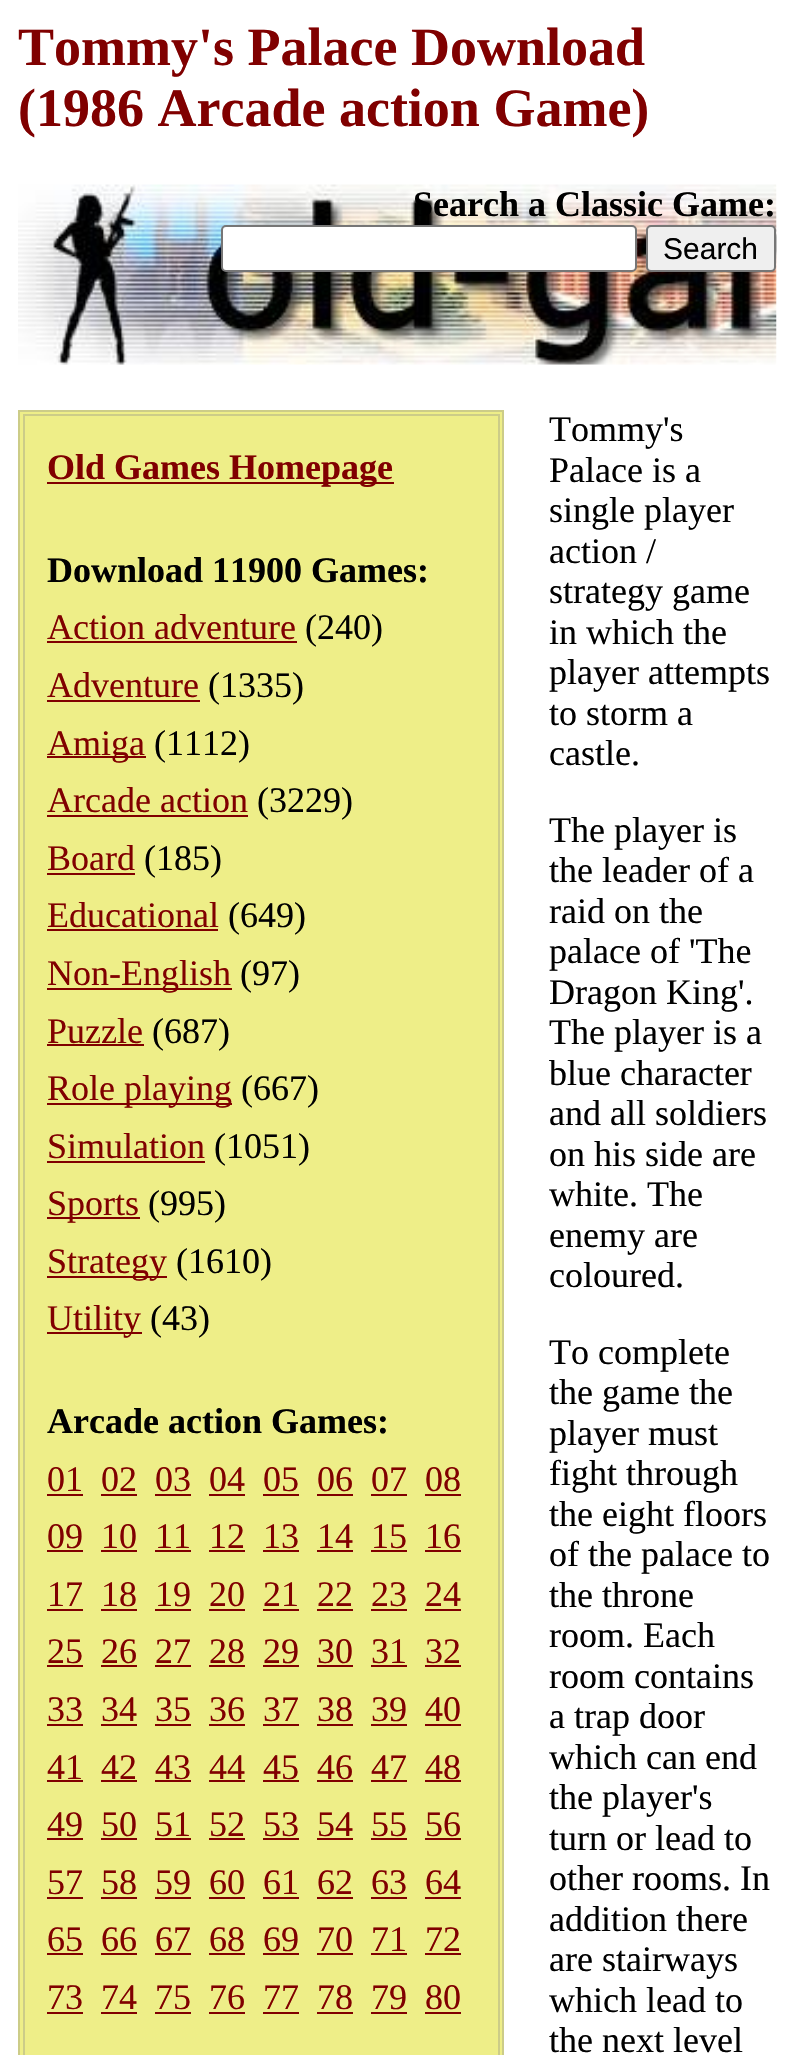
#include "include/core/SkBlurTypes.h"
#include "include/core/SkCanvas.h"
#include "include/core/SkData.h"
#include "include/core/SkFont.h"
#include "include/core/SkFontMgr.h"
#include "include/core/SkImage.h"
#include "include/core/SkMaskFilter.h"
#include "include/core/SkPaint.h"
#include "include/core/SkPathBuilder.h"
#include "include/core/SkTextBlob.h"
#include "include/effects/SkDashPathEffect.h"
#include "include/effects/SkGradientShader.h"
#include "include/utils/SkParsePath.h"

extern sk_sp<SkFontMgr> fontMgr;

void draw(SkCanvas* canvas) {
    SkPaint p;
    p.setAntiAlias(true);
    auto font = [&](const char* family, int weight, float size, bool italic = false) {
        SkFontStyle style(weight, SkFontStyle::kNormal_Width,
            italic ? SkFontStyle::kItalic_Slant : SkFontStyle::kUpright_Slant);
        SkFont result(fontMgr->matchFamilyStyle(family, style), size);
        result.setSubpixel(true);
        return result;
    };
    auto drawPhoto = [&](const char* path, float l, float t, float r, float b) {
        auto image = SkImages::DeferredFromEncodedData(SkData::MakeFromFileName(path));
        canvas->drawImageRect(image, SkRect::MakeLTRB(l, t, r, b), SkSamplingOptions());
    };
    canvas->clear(0xFFFFFFFF);
    auto font1 = font("Liberation Serif", 700, 54);
    p.setColor(0xFF800000);
    canvas->drawString("Tommy's Palace Download", 18, 65, font1, p);
    canvas->drawString("(1986 Arcade action Game)", 18, 126, font1, p);
    drawPhoto("media/1.png", 18, 184, 777, 365);
    auto font2 = font("Liberation Serif", 700, 36);
    p.setColor(0xFF000000);
    canvas->drawString("Search a Classic Game:", 413, 216, font2, p);
    p.setColor(0xFFFFFFFF);
    canvas->drawRoundRect(SkRect::MakeLTRB(222, 226, 636, 271), 4, 4, p);
    p.setStyle(SkPaint::kStroke_Style);
    p.setStrokeWidth(2);
    p.setColor(0xFF767676);
    canvas->drawRoundRect(SkRect::MakeLTRB(222, 226, 636, 271), 4, 4, p);
    p.setStyle(SkPaint::kFill_Style);
    p.setColor(0xFFEFEFEF);
    canvas->drawRoundRect(SkRect::MakeLTRB(647, 226, 775, 271), 4, 4, p);
    p.setStyle(SkPaint::kStroke_Style);
    p.setColor(0xFF767676);
    canvas->drawRoundRect(SkRect::MakeLTRB(647, 226, 775, 271), 4, 4, p);
    auto font3 = font("Liberation Sans", 400, 30);
    p.setStyle(SkPaint::kFill_Style);
    p.setColor(0xFF000000);
    canvas->drawString("Search", 663, 259, font3, p);
    p.setColor(0xFFEEEE88);
    canvas->drawRect(SkRect::MakeLTRB(19, 411, 503, 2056), p);
    p.setStyle(SkPaint::kStroke_Style);
    p.setColor(0xFFCCCC88);
    canvas->drawRect(SkRect::MakeLTRB(19, 411, 503, 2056), p);
    canvas->drawRect(SkRect::MakeLTRB(24, 415, 499, 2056), p);
    p.setStyle(SkPaint::kFill_Style);
    p.setColor(0xFF800000);
    canvas->drawRect(SkRect::MakeLTRB(47, 482, 394, 484), p);
    canvas->drawString("Old Games Homepage", 47, 479, font2, p);
    p.setColor(0xFF000000);
    canvas->drawString("Download 11900 Games:", 47, 582, font2, p);
    auto font4 = font("Liberation Serif", 400, 36);
    p.setColor(0xFF800000);
    canvas->drawString("Action adventure", 47, 639, font4, p);
    canvas->drawRect(SkRect::MakeLTRB(47, 641, 297, 643), p);
    p.setColor(0xFF000000);
    canvas->drawString("(240)", 305, 639, font4, p);
    p.setColor(0xFF800000);
    canvas->drawString("Adventure", 47, 697, font4, p);
    canvas->drawRect(SkRect::MakeLTRB(47, 700, 200, 702), p);
    p.setColor(0xFF000000);
    canvas->drawString("(1335)", 208, 697, font4, p);
    p.setColor(0xFF800000);
    canvas->drawRect(SkRect::MakeLTRB(47, 756, 146, 758), p);
    canvas->drawString("Amiga", 47, 755, font4, p);
    p.setColor(0xFF000000);
    canvas->drawString("(1112)", 154, 755, font4, p);
    p.setColor(0xFF800000);
    canvas->drawString("Arcade action", 47, 812, font4, p);
    canvas->drawRect(SkRect::MakeLTRB(47, 815, 248, 817), p);
    p.setColor(0xFF000000);
    canvas->drawString("(3229)", 257, 812, font4, p);
    p.setColor(0xFF800000);
    canvas->drawString("Board", 47, 870, font4, p);
    canvas->drawRect(SkRect::MakeLTRB(47, 873, 135, 875), p);
    p.setColor(0xFF000000);
    canvas->drawString("(185)", 144, 870, font4, p);
    p.setColor(0xFF800000);
    canvas->drawString("Educational", 47, 927, font4, p);
    canvas->drawRect(SkRect::MakeLTRB(47, 929, 218, 931), p);
    p.setColor(0xFF000000);
    canvas->drawString("(649)", 228, 927, font4, p);
    p.setColor(0xFF800000);
    canvas->drawRect(SkRect::MakeLTRB(47, 988, 232, 990), p);
    canvas->drawString("Non-English", 47, 985, font4, p);
    p.setColor(0xFF000000);
    canvas->drawString("(97)", 240, 985, font4, p);
    p.setColor(0xFF800000);
    canvas->drawString("Puzzle", 47, 1043, font4, p);
    canvas->drawRect(SkRect::MakeLTRB(47, 1044, 144, 1046), p);
    p.setColor(0xFF000000);
    canvas->drawString("(687)", 152, 1043, font4, p);
    p.setColor(0xFF800000);
    canvas->drawRect(SkRect::MakeLTRB(47, 1103, 232, 1105), p);
    canvas->drawString("Role playing", 47, 1100, font4, p);
    p.setColor(0xFF000000);
    canvas->drawString("(667)", 241, 1100, font4, p);
    p.setColor(0xFF800000);
    canvas->drawString("Simulation", 47, 1158, font4, p);
    canvas->drawRect(SkRect::MakeLTRB(47, 1161, 205, 1163), p);
    p.setColor(0xFF000000);
    canvas->drawString("(1051)", 214, 1158, font4, p);
    p.setColor(0xFF800000);
    canvas->drawRect(SkRect::MakeLTRB(47, 1217, 140, 1219), p);
    canvas->drawString("Sports", 47, 1215, font4, p);
    p.setColor(0xFF000000);
    canvas->drawString("(995)", 148, 1215, font4, p);
    p.setColor(0xFF800000);
    canvas->drawRect(SkRect::MakeLTRB(47, 1276, 167, 1278), p);
    canvas->drawString("Strategy", 47, 1273, font4, p);
    p.setColor(0xFF000000);
    canvas->drawString("(1610)", 176, 1273, font4, p);
    p.setColor(0xFF800000);
    canvas->drawRect(SkRect::MakeLTRB(47, 1332, 142, 1334), p);
    canvas->drawString("Utility", 47, 1330, font4, p);
    p.setColor(0xFF000000);
    canvas->drawString("(43)", 150, 1330, font4, p);
    canvas->drawString("Arcade action Games:", 47, 1433, font2, p);
    p.setColor(0xFF800000);
    canvas->drawString("01", 47, 1491, font4, p);
    canvas->drawRect(SkRect::MakeLTRB(47, 1494, 83, 1496), p);
    canvas->drawString("02", 101, 1491, font4, p);
    canvas->drawRect(SkRect::MakeLTRB(101, 1494, 137, 1496), p);
    canvas->drawString("03", 155, 1491, font4, p);
    canvas->drawRect(SkRect::MakeLTRB(155, 1494, 191, 1496), p);
    canvas->drawString("04", 209, 1491, font4, p);
    canvas->drawRect(SkRect::MakeLTRB(209, 1494, 245, 1496), p);
    canvas->drawString("05", 263, 1491, font4, p);
    canvas->drawRect(SkRect::MakeLTRB(263, 1494, 299, 1496), p);
    canvas->drawString("06", 317, 1491, font4, p);
    canvas->drawRect(SkRect::MakeLTRB(317, 1494, 353, 1496), p);
    canvas->drawString("07", 371, 1491, font4, p);
    canvas->drawRect(SkRect::MakeLTRB(371, 1494, 407, 1496), p);
    canvas->drawString("08", 425, 1491, font4, p);
    canvas->drawRect(SkRect::MakeLTRB(425, 1494, 461, 1496), p);
    canvas->drawString("09", 47, 1548, font4, p);
    canvas->drawRect(SkRect::MakeLTRB(47, 1550, 83, 1552), p);
    canvas->drawString("10", 101, 1548, font4, p);
    canvas->drawRect(SkRect::MakeLTRB(101, 1550, 137, 1552), p);
    canvas->drawString("11", 155, 1548, font4, p);
    canvas->drawRect(SkRect::MakeLTRB(155, 1550, 191, 1552), p);
    canvas->drawString("12", 209, 1548, font4, p);
    canvas->drawRect(SkRect::MakeLTRB(209, 1550, 245, 1552), p);
    canvas->drawString("13", 263, 1548, font4, p);
    canvas->drawRect(SkRect::MakeLTRB(263, 1550, 299, 1552), p);
    canvas->drawString("14", 317, 1548, font4, p);
    canvas->drawRect(SkRect::MakeLTRB(317, 1550, 353, 1552), p);
    canvas->drawString("15", 371, 1548, font4, p);
    canvas->drawRect(SkRect::MakeLTRB(371, 1550, 407, 1552), p);
    canvas->drawString("16", 425, 1548, font4, p);
    canvas->drawRect(SkRect::MakeLTRB(425, 1550, 461, 1552), p);
    canvas->drawString("17", 47, 1606, font4, p);
    canvas->drawRect(SkRect::MakeLTRB(47, 1609, 83, 1611), p);
    canvas->drawString("18", 101, 1606, font4, p);
    canvas->drawRect(SkRect::MakeLTRB(101, 1609, 137, 1611), p);
    canvas->drawString("19", 155, 1606, font4, p);
    canvas->drawRect(SkRect::MakeLTRB(155, 1609, 191, 1611), p);
    canvas->drawString("20", 209, 1606, font4, p);
    canvas->drawRect(SkRect::MakeLTRB(209, 1609, 245, 1611), p);
    canvas->drawString("21", 263, 1606, font4, p);
    canvas->drawRect(SkRect::MakeLTRB(263, 1609, 299, 1611), p);
    canvas->drawString("22", 317, 1606, font4, p);
    canvas->drawRect(SkRect::MakeLTRB(317, 1609, 353, 1611), p);
    canvas->drawString("23", 371, 1606, font4, p);
    canvas->drawRect(SkRect::MakeLTRB(371, 1609, 407, 1611), p);
    canvas->drawString("24", 425, 1606, font4, p);
    canvas->drawRect(SkRect::MakeLTRB(425, 1609, 461, 1611), p);
    canvas->drawString("25", 47, 1663, font4, p);
    canvas->drawRect(SkRect::MakeLTRB(47, 1665, 83, 1667), p);
    canvas->drawString("26", 101, 1663, font4, p);
    canvas->drawRect(SkRect::MakeLTRB(101, 1665, 137, 1667), p);
    canvas->drawString("27", 155, 1663, font4, p);
    canvas->drawRect(SkRect::MakeLTRB(155, 1665, 191, 1667), p);
    canvas->drawString("28", 209, 1663, font4, p);
    canvas->drawRect(SkRect::MakeLTRB(209, 1665, 245, 1667), p);
    canvas->drawString("29", 263, 1663, font4, p);
    canvas->drawRect(SkRect::MakeLTRB(263, 1665, 299, 1667), p);
    canvas->drawString("30", 317, 1663, font4, p);
    canvas->drawRect(SkRect::MakeLTRB(317, 1665, 353, 1667), p);
    canvas->drawString("31", 371, 1663, font4, p);
    canvas->drawRect(SkRect::MakeLTRB(371, 1665, 407, 1667), p);
    canvas->drawString("32", 425, 1663, font4, p);
    canvas->drawRect(SkRect::MakeLTRB(425, 1665, 461, 1667), p);
    canvas->drawString("33", 47, 1721, font4, p);
    canvas->drawRect(SkRect::MakeLTRB(47, 1724, 83, 1726), p);
    canvas->drawString("34", 101, 1721, font4, p);
    canvas->drawRect(SkRect::MakeLTRB(101, 1724, 137, 1726), p);
    canvas->drawString("35", 155, 1721, font4, p);
    canvas->drawRect(SkRect::MakeLTRB(155, 1724, 191, 1726), p);
    canvas->drawString("36", 209, 1721, font4, p);
    canvas->drawRect(SkRect::MakeLTRB(209, 1724, 245, 1726), p);
    canvas->drawString("37", 263, 1721, font4, p);
    canvas->drawRect(SkRect::MakeLTRB(263, 1724, 299, 1726), p);
    canvas->drawString("38", 317, 1721, font4, p);
    canvas->drawRect(SkRect::MakeLTRB(317, 1724, 353, 1726), p);
    canvas->drawString("39", 371, 1721, font4, p);
    canvas->drawRect(SkRect::MakeLTRB(371, 1724, 407, 1726), p);
    canvas->drawString("40", 425, 1721, font4, p);
    canvas->drawRect(SkRect::MakeLTRB(425, 1724, 461, 1726), p);
    canvas->drawString("41", 47, 1779, font4, p);
    canvas->drawRect(SkRect::MakeLTRB(47, 1780, 83, 1782), p);
    canvas->drawString("42", 101, 1779, font4, p);
    canvas->drawRect(SkRect::MakeLTRB(101, 1780, 137, 1782), p);
    canvas->drawString("43", 155, 1779, font4, p);
    canvas->drawRect(SkRect::MakeLTRB(155, 1780, 191, 1782), p);
    canvas->drawString("44", 209, 1779, font4, p);
    canvas->drawRect(SkRect::MakeLTRB(209, 1780, 245, 1782), p);
    canvas->drawString("45", 263, 1779, font4, p);
    canvas->drawRect(SkRect::MakeLTRB(263, 1780, 299, 1782), p);
    canvas->drawString("46", 317, 1779, font4, p);
    canvas->drawRect(SkRect::MakeLTRB(317, 1780, 353, 1782), p);
    canvas->drawString("47", 371, 1779, font4, p);
    canvas->drawRect(SkRect::MakeLTRB(371, 1780, 407, 1782), p);
    canvas->drawString("48", 425, 1779, font4, p);
    canvas->drawRect(SkRect::MakeLTRB(425, 1780, 461, 1782), p);
    canvas->drawString("49", 47, 1836, font4, p);
    canvas->drawRect(SkRect::MakeLTRB(47, 1838, 83, 1840), p);
    canvas->drawString("50", 101, 1836, font4, p);
    canvas->drawRect(SkRect::MakeLTRB(101, 1838, 137, 1840), p);
    canvas->drawString("51", 155, 1836, font4, p);
    canvas->drawRect(SkRect::MakeLTRB(155, 1838, 191, 1840), p);
    canvas->drawString("52", 209, 1836, font4, p);
    canvas->drawRect(SkRect::MakeLTRB(209, 1838, 245, 1840), p);
    canvas->drawString("53", 263, 1836, font4, p);
    canvas->drawRect(SkRect::MakeLTRB(263, 1838, 299, 1840), p);
    canvas->drawString("54", 317, 1836, font4, p);
    canvas->drawRect(SkRect::MakeLTRB(317, 1838, 353, 1840), p);
    canvas->drawString("55", 371, 1836, font4, p);
    canvas->drawRect(SkRect::MakeLTRB(371, 1838, 407, 1840), p);
    canvas->drawString("56", 425, 1836, font4, p);
    canvas->drawRect(SkRect::MakeLTRB(425, 1838, 461, 1840), p);
    canvas->drawString("57", 47, 1894, font4, p);
    canvas->drawRect(SkRect::MakeLTRB(47, 1897, 83, 1899), p);
    canvas->drawString("58", 101, 1894, font4, p);
    canvas->drawRect(SkRect::MakeLTRB(101, 1897, 137, 1899), p);
    canvas->drawString("59", 155, 1894, font4, p);
    canvas->drawRect(SkRect::MakeLTRB(155, 1897, 191, 1899), p);
    canvas->drawString("60", 209, 1894, font4, p);
    canvas->drawRect(SkRect::MakeLTRB(209, 1897, 245, 1899), p);
    canvas->drawString("61", 263, 1894, font4, p);
    canvas->drawRect(SkRect::MakeLTRB(263, 1897, 299, 1899), p);
    canvas->drawString("62", 317, 1894, font4, p);
    canvas->drawRect(SkRect::MakeLTRB(317, 1897, 353, 1899), p);
    canvas->drawString("63", 371, 1894, font4, p);
    canvas->drawRect(SkRect::MakeLTRB(371, 1897, 407, 1899), p);
    canvas->drawString("64", 425, 1894, font4, p);
    canvas->drawRect(SkRect::MakeLTRB(425, 1897, 461, 1899), p);
    canvas->drawString("65", 47, 1951, font4, p);
    canvas->drawRect(SkRect::MakeLTRB(47, 1953, 83, 1955), p);
    canvas->drawString("66", 101, 1951, font4, p);
    canvas->drawRect(SkRect::MakeLTRB(101, 1953, 137, 1955), p);
    canvas->drawString("67", 155, 1951, font4, p);
    canvas->drawRect(SkRect::MakeLTRB(155, 1953, 191, 1955), p);
    canvas->drawString("68", 209, 1951, font4, p);
    canvas->drawRect(SkRect::MakeLTRB(209, 1953, 245, 1955), p);
    canvas->drawString("69", 263, 1951, font4, p);
    canvas->drawRect(SkRect::MakeLTRB(263, 1953, 299, 1955), p);
    canvas->drawString("70", 317, 1951, font4, p);
    canvas->drawRect(SkRect::MakeLTRB(317, 1953, 353, 1955), p);
    canvas->drawString("71", 371, 1951, font4, p);
    canvas->drawRect(SkRect::MakeLTRB(371, 1953, 407, 1955), p);
    canvas->drawString("72", 425, 1951, font4, p);
    canvas->drawRect(SkRect::MakeLTRB(425, 1953, 461, 1955), p);
    canvas->drawString("73", 47, 2009, font4, p);
    canvas->drawRect(SkRect::MakeLTRB(47, 2012, 83, 2014), p);
    canvas->drawString("74", 101, 2009, font4, p);
    canvas->drawRect(SkRect::MakeLTRB(101, 2012, 137, 2014), p);
    canvas->drawString("75", 155, 2009, font4, p);
    canvas->drawRect(SkRect::MakeLTRB(155, 2012, 191, 2014), p);
    canvas->drawString("76", 209, 2009, font4, p);
    canvas->drawRect(SkRect::MakeLTRB(209, 2012, 245, 2014), p);
    canvas->drawString("77", 263, 2009, font4, p);
    canvas->drawRect(SkRect::MakeLTRB(263, 2012, 299, 2014), p);
    canvas->drawString("78", 317, 2009, font4, p);
    canvas->drawRect(SkRect::MakeLTRB(317, 2012, 353, 2014), p);
    canvas->drawString("79", 371, 2009, font4, p);
    canvas->drawRect(SkRect::MakeLTRB(371, 2012, 407, 2014), p);
    canvas->drawString("80", 425, 2009, font4, p);
    canvas->drawRect(SkRect::MakeLTRB(425, 2012, 461, 2014), p);
    p.setColor(0xFF000000);
    {
        const struct { const char* s; float x, y; } items[] = {
            {"Tommy's", 549, 441},
            {"Palace is a", 549, 482},
            {"single player", 549, 522},
            {"action /", 549, 563},
            {"strategy game", 549, 603},
            {"in which the", 549, 644},
            {"player attempts", 549, 684},
            {"to storm a", 549, 725},
            {"castle.", 549, 765},
            {"The player is", 549, 842},
            {"the leader of a", 549, 882},
            {"raid on the", 549, 923},
            {"palace of 'The", 549, 963},
            {"Dragon King'.", 549, 1004},
            {"The player is a", 549, 1044},
            {"blue character", 549, 1085},
            {"and all soldiers", 549, 1125},
            {"on his side are", 549, 1166},
            {"white. The", 549, 1206},
            {"enemy are", 549, 1247},
            {"coloured.", 549, 1287},
            {"To complete", 549, 1364},
            {"the game the", 549, 1404},
            {"player must", 549, 1445},
            {"fight through", 549, 1485},
            {"the eight floors", 549, 1526},
            {"of the palace to", 549, 1566},
            {"the throne", 549, 1607},
            {"room. Each", 549, 1647},
            {"room contains", 549, 1688},
            {"a trap door", 549, 1728},
            {"which can end", 549, 1769},
            {"the player's", 549, 1809},
            {"turn or lead to", 549, 1850},
            {"other rooms. In", 549, 1890},
            {"addition there", 549, 1931},
            {"are stairways", 549, 1971},
            {"which lead to", 549, 2012},
            {"the next level", 549, 2052},
        };
        for (auto [s, x, y] : items) {
            canvas->drawString(s, x, y, font4, p);
        }
    }
}
